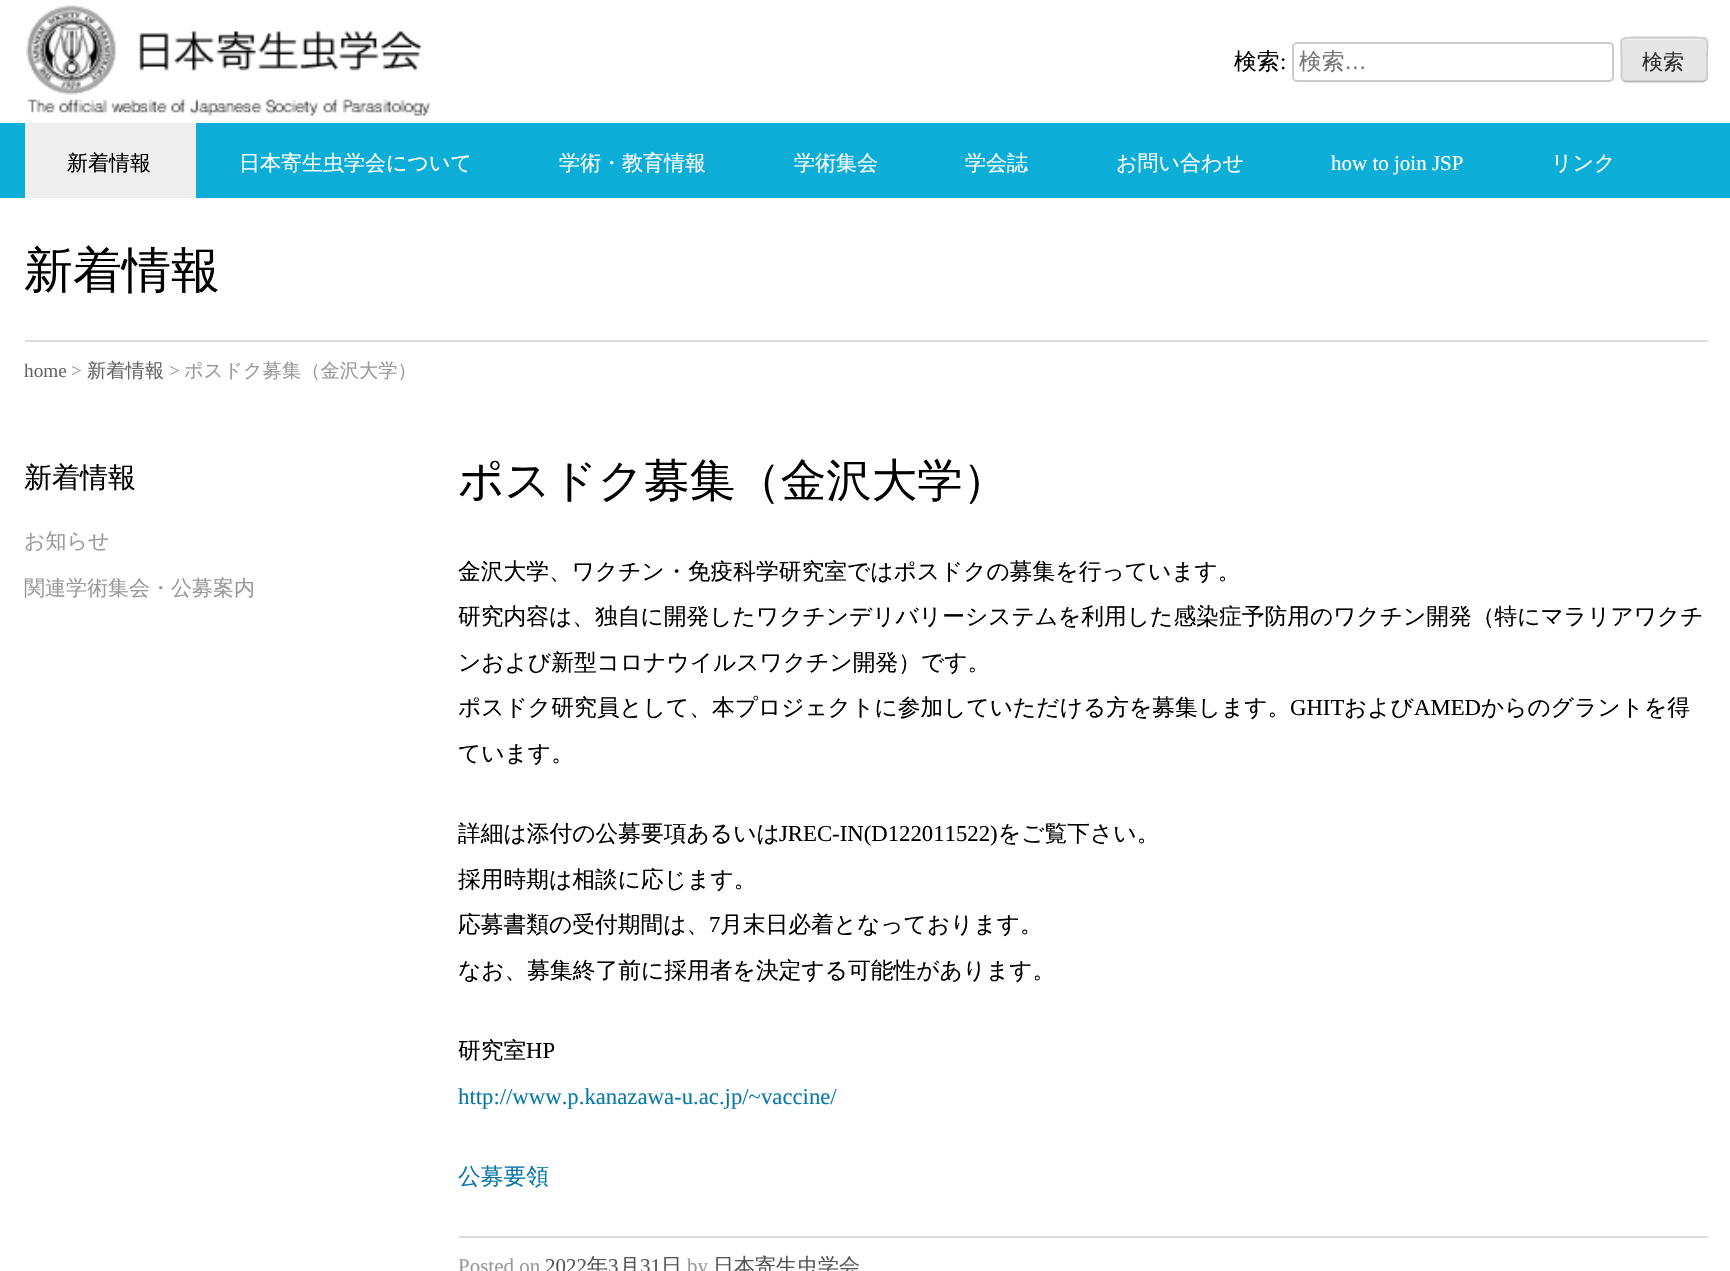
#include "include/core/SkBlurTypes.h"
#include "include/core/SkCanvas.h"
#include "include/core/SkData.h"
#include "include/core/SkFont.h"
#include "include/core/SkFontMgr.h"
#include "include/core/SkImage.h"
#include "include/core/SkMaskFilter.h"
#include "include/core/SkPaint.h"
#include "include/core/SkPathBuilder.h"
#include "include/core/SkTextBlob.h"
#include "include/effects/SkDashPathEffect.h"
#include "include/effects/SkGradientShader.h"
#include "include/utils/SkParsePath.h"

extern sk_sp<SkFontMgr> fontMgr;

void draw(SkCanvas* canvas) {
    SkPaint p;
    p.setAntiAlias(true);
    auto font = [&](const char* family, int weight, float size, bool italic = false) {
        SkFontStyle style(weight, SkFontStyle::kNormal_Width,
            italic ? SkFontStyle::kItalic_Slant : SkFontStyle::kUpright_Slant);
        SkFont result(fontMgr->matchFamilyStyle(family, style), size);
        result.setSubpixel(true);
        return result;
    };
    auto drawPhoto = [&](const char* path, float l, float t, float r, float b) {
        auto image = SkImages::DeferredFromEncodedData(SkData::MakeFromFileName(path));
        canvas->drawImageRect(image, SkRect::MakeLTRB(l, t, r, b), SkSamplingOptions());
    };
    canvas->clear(0xFFFFFFFF);
    drawPhoto("media/1.png", 26, 5, 431, 116);
    auto font1 = font("WenQuanYi Zen Hei", 500, 22.75f);
    p.setColor(0xFF000000);
    canvas->drawString("検索", 1234, 69, font1, p);
    auto font2 = font("Liberation Serif", 400, 22.75f);
    canvas->drawString(":", 1280, 69, font2, p);
    p.setStyle(SkPaint::kStroke_Style);
    p.setStrokeWidth(2);
    p.setColor(0xFFCCCCCC);
    canvas->drawRoundRect(SkRect::MakeLTRB(1293, 43, 1613, 81), 4, 4, p);
    p.setStyle(SkPaint::kFill_Style);
    p.setColor(0xFF757575);
    canvas->drawString("検索", 1299, 69, font1, p);
    auto font3 = font("Liberation Sans", 400, 22.75f);
    canvas->drawString("…", 1344, 69, font3, p);
    p.setColor(0xFFE6E6E6);
    canvas->drawRoundRect(SkRect::MakeLTRB(1621, 37, 1708, 82), 5, 5, p);
    p.setColor(0xFFF3F3F3);
    canvas->drawPath(SkPathBuilder().moveTo(1626, 40).lineTo(1703, 40).cubicTo(1705, 40, 1706, 42, 1706, 44).cubicTo(1706, 36, 1694, 39, 1689, 39).lineTo(1639, 39).cubicTo(1634, 39, 1622, 36, 1622, 44).cubicTo(1622, 42, 1624, 40, 1626, 40).close().detach(), p);
    p.setStyle(SkPaint::kStroke_Style);
    p.setStrokeWidth(1.8f);
    p.setColor(0xFFBBBBBB);
    canvas->drawPath(SkPathBuilder().moveTo(1706, 80).lineTo(1703, 81.5f).lineTo(1625.5f, 81.5f).lineTo(1622.5f, 80).detach(), p);
    p.setColor(0xFFCCCCCC);
    canvas->drawPath(SkPathBuilder().moveTo(1622.5f, 80).cubicTo(1620.5f, 78, 1621.5f, 73.5f, 1621.5f, 71).lineTo(1621.5f, 59.5f).cubicTo(1621.5f, 36.5f, 1616.5f, 37.5f, 1638.5f, 37.5f).lineTo(1690, 37.5f).cubicTo(1712, 37.5f, 1707, 36.5f, 1707, 59.5f).lineTo(1707, 71).cubicTo(1707, 73.5f, 1708, 78, 1706, 80).detach(), p);
    auto font4 = font("WenQuanYi Zen Hei", 500, 21);
    p.setStyle(SkPaint::kFill_Style);
    p.setColor(0xFF2E2E2E);
    canvas->drawString("検索", 1642, 69, font4, p);
    p.setColor(0xFF0CADD6);
    canvas->drawRect(SkRect::MakeLTRB(0, 123, 1730, 198), p);
    p.setColor(0xFFEEEEEE);
    canvas->drawRect(SkRect::MakeLTRB(25, 123, 196, 198), p);
    p.setColor(0xFF000000);
    canvas->drawString("新着情報", 67, 170, font4, p);
    p.setColor(0xFFFFFFFF);
    {
        const struct { const char* s; float x, y; } items[] = {
            {"日本寄生虫学会について", 239, 170},
            {"学術・教育情報", 559, 170},
            {"学術集会", 794, 170},
            {"学会誌", 965, 170},
            {"お問い合わせ", 1116, 170},
        };
        for (auto [s, x, y] : items) {
            canvas->drawString(s, x, y, font4, p);
        }
    }
    auto font5 = font("Liberation Serif", 400, 21);
    canvas->drawString("how to join JSP", 1331, 170, font5, p);
    canvas->drawString("リンク", 1551, 170, font4, p);
    p.setColor(0xFFDDDDDD);
    canvas->drawRect(SkRect::MakeLTRB(25, 340, 1708, 342), p);
    auto font6 = font("WenQuanYi Zen Hei", 500, 49);
    p.setColor(0xFF000000);
    canvas->drawString("新着情報", 24, 287, font6, p);
    auto font7 = font("Liberation Serif", 400, 19.25f);
    p.setColor(0xFF666666);
    canvas->drawString("home", 24, 377, font7, p);
    p.setColor(0xFF999999);
    canvas->drawString(">", 71, 377, font7, p);
    auto font8 = font("WenQuanYi Zen Hei", 500, 19.25f);
    p.setColor(0xFF666666);
    canvas->drawString("新着情報", 87, 377, font8, p);
    p.setColor(0xFF999999);
    canvas->drawString(">", 169, 377, font7, p);
    canvas->drawString("ポスドク募集（金沢大学）", 184, 377, font8, p);
    auto font9 = font("WenQuanYi Zen Hei", 500, 28);
    p.setColor(0xFF000000);
    canvas->drawString("新着情報", 24, 487, font9, p);
    p.setColor(0xFF999999);
    canvas->drawString("お知らせ", 24, 548, font4, p);
    canvas->drawString("関連学術集会・公募案内", 24, 595, font4, p);
    auto font10 = font("WenQuanYi Zen Hei", 500, 45.5f);
    p.setColor(0xFF000000);
    canvas->drawString("ポスドク募集（金沢大学）", 458, 496, font10, p);
    {
        const struct { const char* s; float x, y; } items[] = {
            {"金沢大学、ワクチン・免疫科学研究室ではポスドクの募集を行っています。", 458, 579},
            {"研究内容は、独自に開発したワクチンデリバリーシステムを利用した感染症予防用のワクチン開発（特にマラリアワクチ", 458, 624},
            {"ンおよび新型コロナウイルスワクチン開発）です。", 458, 670},
            {"ポスドク研究員として、本プロジェクトに参加していただける方を募集します。", 458, 715},
        };
        for (auto [s, x, y] : items) {
            canvas->drawString(s, x, y, font1, p);
        }
    }
    canvas->drawString("GHIT", 1290, 715, font2, p);
    canvas->drawString("および", 1344, 715, font1, p);
    canvas->drawString("AMED", 1414, 715, font2, p);
    {
        const struct { const char* s; float x, y; } items[] = {
            {"からのグラントを得", 1481, 715},
            {"ています。", 458, 761},
            {"詳細は添付の公募要項あるいは", 458, 841},
        };
        for (auto [s, x, y] : items) {
            canvas->drawString(s, x, y, font1, p);
        }
    }
    canvas->drawString("JREC-IN(D122011522)", 779, 841, font2, p);
    {
        const struct { const char* s; float x, y; } items[] = {
            {"をご覧下さい。", 998, 841},
            {"採用時期は相談に応じます。", 458, 887},
            {"応募書類の受付期間は、", 458, 932},
        };
        for (auto [s, x, y] : items) {
            canvas->drawString(s, x, y, font1, p);
        }
    }
    canvas->drawString("7", 709, 932, font2, p);
    {
        const struct { const char* s; float x, y; } items[] = {
            {"月末日必着となっております。", 720, 932},
            {"なお、募集終了前に採用者を決定する可能性があります。", 458, 978},
            {"研究室", 458, 1058},
        };
        for (auto [s, x, y] : items) {
            canvas->drawString(s, x, y, font1, p);
        }
    }
    canvas->drawString("HP", 526, 1058, font2, p);
    p.setColor(0xFF0A78A8);
    canvas->drawString("http://www.p.kanazawa-u.ac.jp/~vaccine/", 458, 1104, font2, p);
    canvas->drawString("公募要領", 458, 1184, font1, p);
    p.setColor(0xFFDDDDDD);
    canvas->drawRect(SkRect::MakeLTRB(459, 1236, 1708, 1238), p);
    p.setColor(0xFF999999);
    canvas->drawString("Posted on", 458, 1273, font5, p);
    p.setColor(0xFF555555);
    canvas->drawString("2022", 545, 1273, font5, p);
    canvas->drawString("年", 587, 1273, font4, p);
    canvas->drawString("3", 608, 1273, font5, p);
    canvas->drawString("月", 619, 1273, font4, p);
    canvas->drawString("31", 640, 1273, font5, p);
    canvas->drawString("日", 661, 1273, font4, p);
    p.setColor(0xFF999999);
    canvas->drawString("by", 687, 1273, font5, p);
    p.setColor(0xFF555555);
    canvas->drawString("日本寄生虫学会", 713, 1273, font4, p);
}
